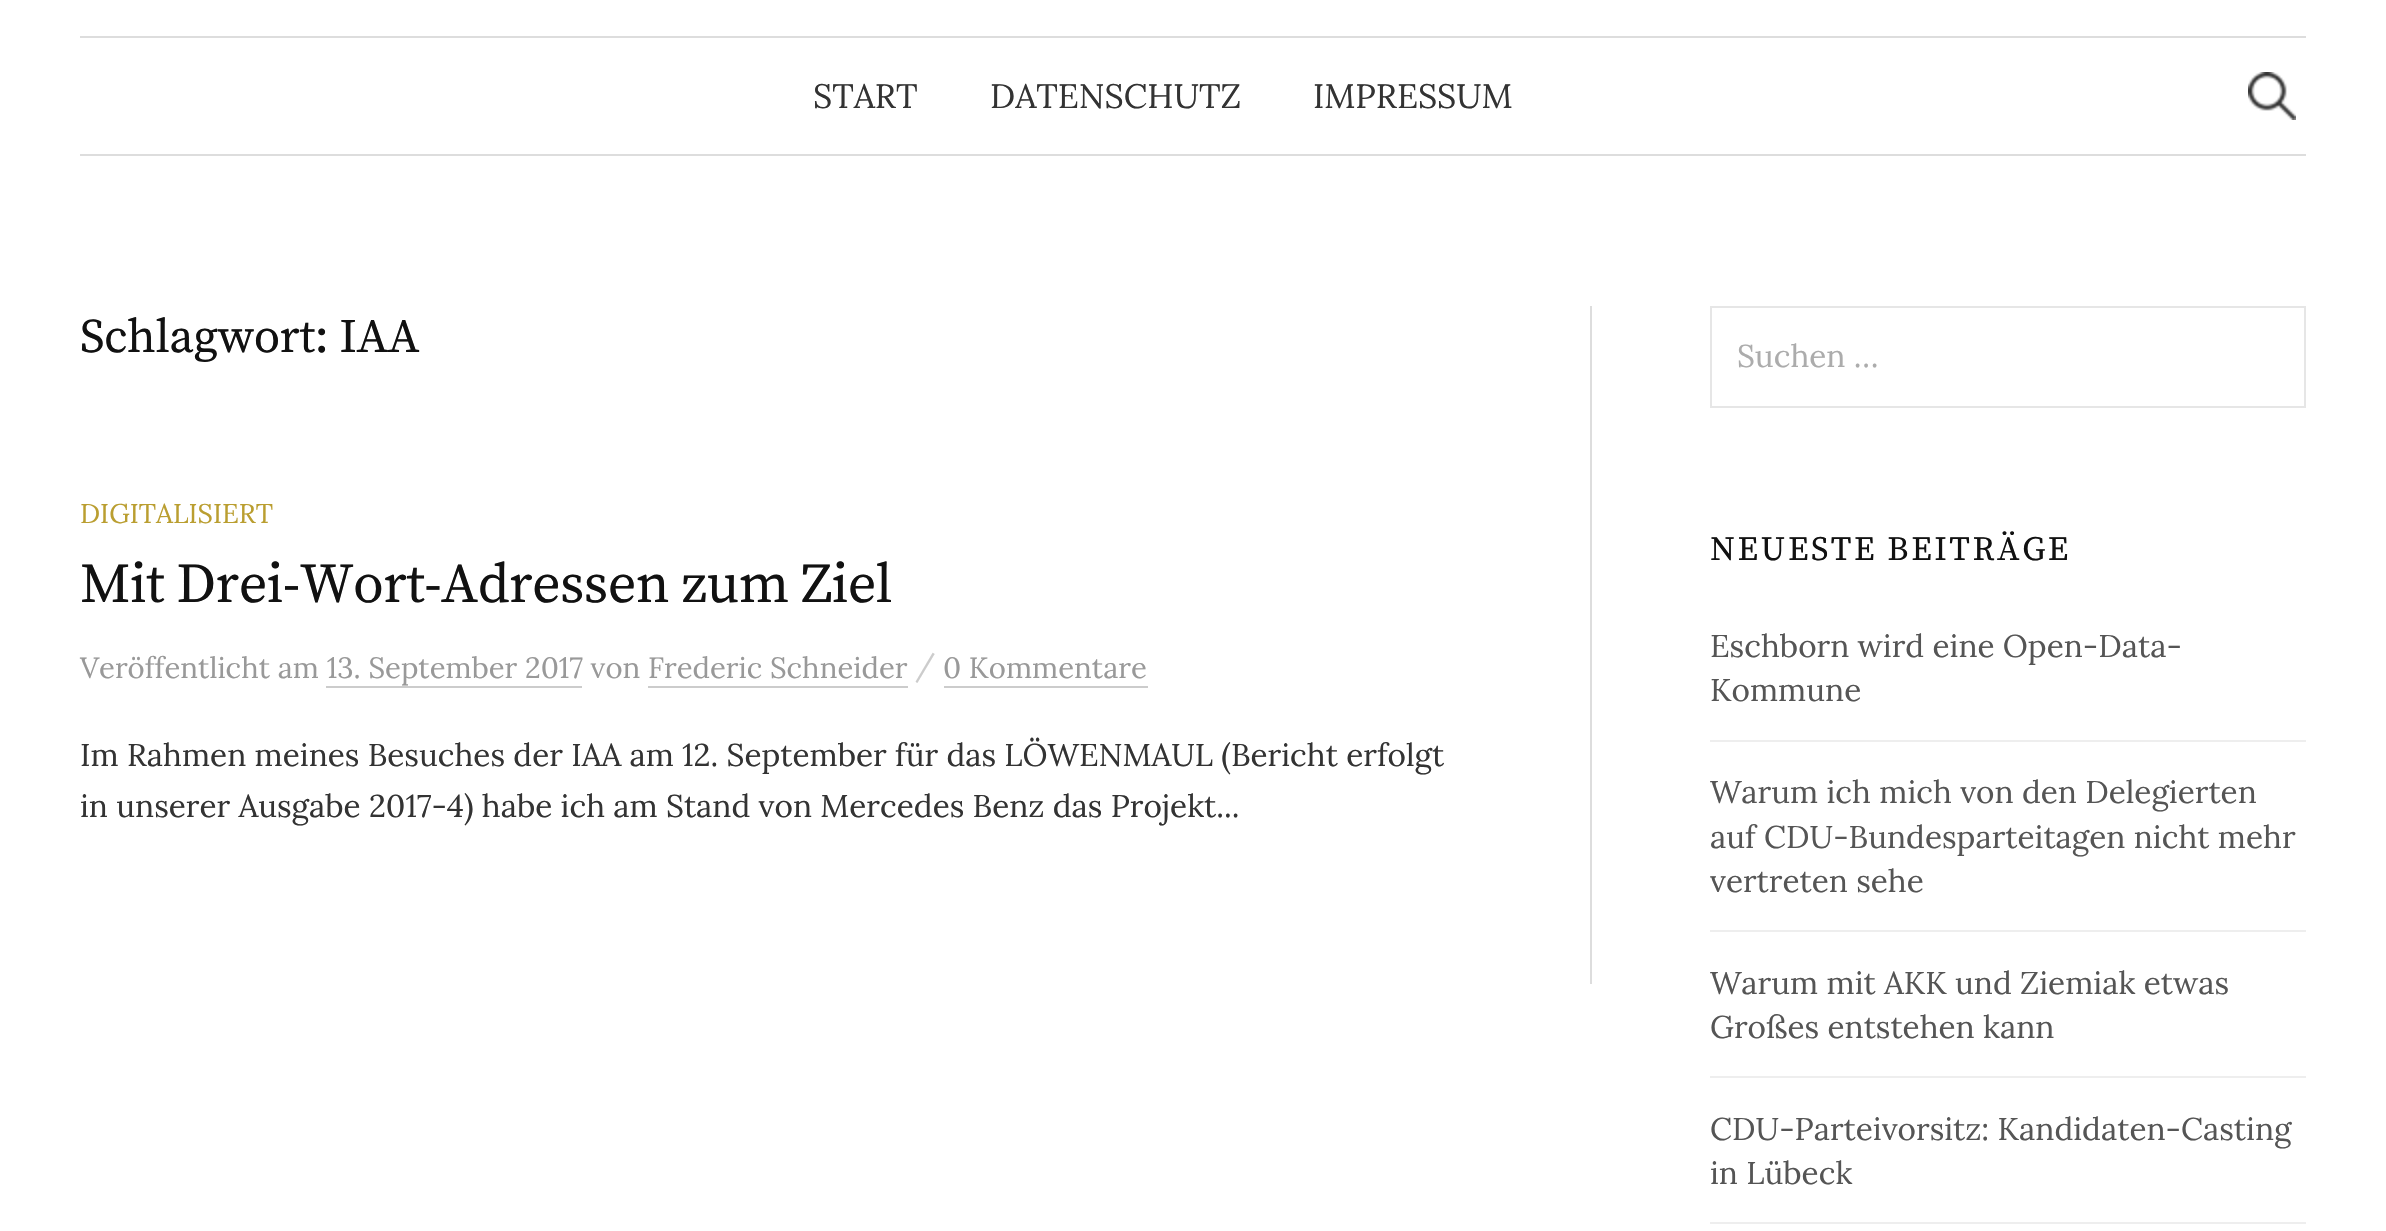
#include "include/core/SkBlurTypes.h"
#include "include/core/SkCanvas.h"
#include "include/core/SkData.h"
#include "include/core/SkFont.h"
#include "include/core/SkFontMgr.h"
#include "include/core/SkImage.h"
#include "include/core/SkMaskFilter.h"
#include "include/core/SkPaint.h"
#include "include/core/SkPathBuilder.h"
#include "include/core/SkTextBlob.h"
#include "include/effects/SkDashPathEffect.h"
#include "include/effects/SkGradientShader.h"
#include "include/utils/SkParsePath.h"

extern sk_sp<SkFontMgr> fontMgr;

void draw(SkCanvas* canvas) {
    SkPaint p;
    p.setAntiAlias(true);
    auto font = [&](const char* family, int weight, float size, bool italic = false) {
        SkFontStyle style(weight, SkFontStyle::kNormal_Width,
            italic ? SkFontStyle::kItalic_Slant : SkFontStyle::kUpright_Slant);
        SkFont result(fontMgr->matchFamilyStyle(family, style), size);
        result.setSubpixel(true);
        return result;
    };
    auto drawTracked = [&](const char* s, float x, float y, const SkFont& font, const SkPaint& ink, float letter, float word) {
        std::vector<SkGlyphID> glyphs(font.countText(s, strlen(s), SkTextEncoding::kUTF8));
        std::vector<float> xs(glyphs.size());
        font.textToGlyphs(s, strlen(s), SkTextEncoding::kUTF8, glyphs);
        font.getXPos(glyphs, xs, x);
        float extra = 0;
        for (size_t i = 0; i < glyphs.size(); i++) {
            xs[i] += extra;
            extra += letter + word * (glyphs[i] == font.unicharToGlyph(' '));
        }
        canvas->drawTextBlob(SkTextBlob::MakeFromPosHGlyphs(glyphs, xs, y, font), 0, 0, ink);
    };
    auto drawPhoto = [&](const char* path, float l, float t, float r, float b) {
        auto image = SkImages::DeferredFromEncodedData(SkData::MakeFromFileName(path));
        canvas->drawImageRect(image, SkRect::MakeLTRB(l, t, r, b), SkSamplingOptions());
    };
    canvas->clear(0xFFFFFFFF);
    p.setColor(0xFFDDDDDD);
    canvas->drawRect(SkRect::MakeLTRB(80, 36, 2306, 38), p);
    canvas->drawRect(SkRect::MakeLTRB(80, 154, 2306, 156), p);
    auto font1 = font("Lora", 400, 33.75f);
    p.setColor(0xFF333333);
    {
        const struct { const char* s; float x, y; } items[] = {
            {"START", 813, 108},
            {"DATENSCHUTZ", 990, 108},
            {"IMPRESSUM", 1313, 108},
        };
        for (auto [s, x, y] : items) {
            canvas->drawString(s, x, y, font1, p);
        }
    }
    drawPhoto("media/1.png", 2248, 72, 2296, 120);
    p.setColor(0xFFDDDDDD);
    canvas->drawRect(SkRect::MakeLTRB(1590, 306, 1592, 984), p);
    auto font2 = font("Source Serif Pro", 400, 48);
    p.setColor(0xFF111111);
    drawTracked("Schlagwort: IAA", 80, 352, font2, p, -0.5f, 0);
    auto font3 = font("Lora", 400, 27);
    p.setColor(0xFFBA9E30);
    canvas->drawString("DIGITALISIERT", 80, 523, font3, p);
    auto font4 = font("Source Serif Pro", 400, 56);
    p.setColor(0xFF111111);
    drawTracked("Mit Drei-Wort-Adressen zum Ziel", 80, 602, font4, p, -0.55f, 0);
    auto font5 = font("Lora", 400, 29.25f);
    p.setColor(0xFF999999);
    canvas->drawString("Veröffentlicht am 13. September 2017 von Frederic Schneider", 80, 678, font5, p);
    p.setColor(0xFFCCCCCC);
    canvas->drawString("/", 915, 675, font5, p);
    p.setColor(0xFF999999);
    canvas->drawString("0 Kommentare", 943, 678, font5, p);
    {
        const struct { float l, t, r, b; SkColor color; } items[] = {
            {944, 686, 1148, 688, 0xFFCCCCCC},
            {326, 686, 582, 688, 0xFFCCCCCC},
            {648, 686, 908, 688, 0xFFCCCCCC},
        };
        for (auto [l, t, r, b, color] : items) {
            p.setColor(color);
            canvas->drawRect(SkRect::MakeLTRB(l, t, r, b), p);
        }
    }
    auto font6 = font("Lora", 400, 31.5f);
    p.setColor(0xFF333333);
    canvas->drawString("Im Rahmen meines Besuches der IAA am 12. September für das LÖWENMAUL (Bericht erfolgt", 80, 766, font6, p);
    canvas->drawString("in unserer Ausgabe 2017-4) habe ich am Stand von Mercedes Benz das Projekt...", 80, 817, font6, p);
    p.setStyle(SkPaint::kStroke_Style);
    p.setStrokeWidth(2);
    p.setColor(0xFFE6E6E6);
    canvas->drawRect(SkRect::MakeLTRB(1711, 307, 2305, 407), p);
    p.setStyle(SkPaint::kFill_Style);
    p.setColor(0xFFACACAC);
    canvas->drawString("Suchen …", 1737, 367, font6, p);
    auto font7 = font("Source Serif Pro", 400, 34);
    p.setColor(0xFF111111);
    drawTracked("NEUESTE BEITRÄGE", 1710, 560, font7, p, 2.5f, 0);
    p.setColor(0xFF555555);
    canvas->drawString("Eschborn wird eine Open-Data-", 1710, 657, font6, p);
    canvas->drawString("Kommune", 1710, 701, font6, p);
    p.setColor(0xFFEEEEEE);
    canvas->drawRect(SkRect::MakeLTRB(1710, 740, 2306, 742), p);
    p.setColor(0xFF555555);
    {
        const struct { const char* s; float x, y; } items[] = {
            {"Warum ich mich von den Delegierten", 1710, 803},
            {"auf CDU-Bundesparteitagen nicht mehr", 1710, 848},
            {"vertreten sehe", 1710, 892},
        };
        for (auto [s, x, y] : items) {
            canvas->drawString(s, x, y, font6, p);
        }
    }
    p.setColor(0xFFEEEEEE);
    canvas->drawRect(SkRect::MakeLTRB(1710, 930, 2306, 932), p);
    p.setColor(0xFF555555);
    canvas->drawString("Warum mit AKK und Ziemiak etwas", 1710, 994, font6, p);
    canvas->drawString("Großes entstehen kann", 1710, 1038, font6, p);
    p.setColor(0xFFEEEEEE);
    canvas->drawRect(SkRect::MakeLTRB(1710, 1076, 2306, 1078), p);
    p.setColor(0xFF555555);
    canvas->drawString("CDU-Parteivorsitz: Kandidaten-Casting", 1710, 1140, font6, p);
    canvas->drawString("in Lübeck", 1710, 1184, font6, p);
    p.setColor(0xFFEEEEEE);
    canvas->drawRect(SkRect::MakeLTRB(1710, 1222, 2306, 1224), p);
}
